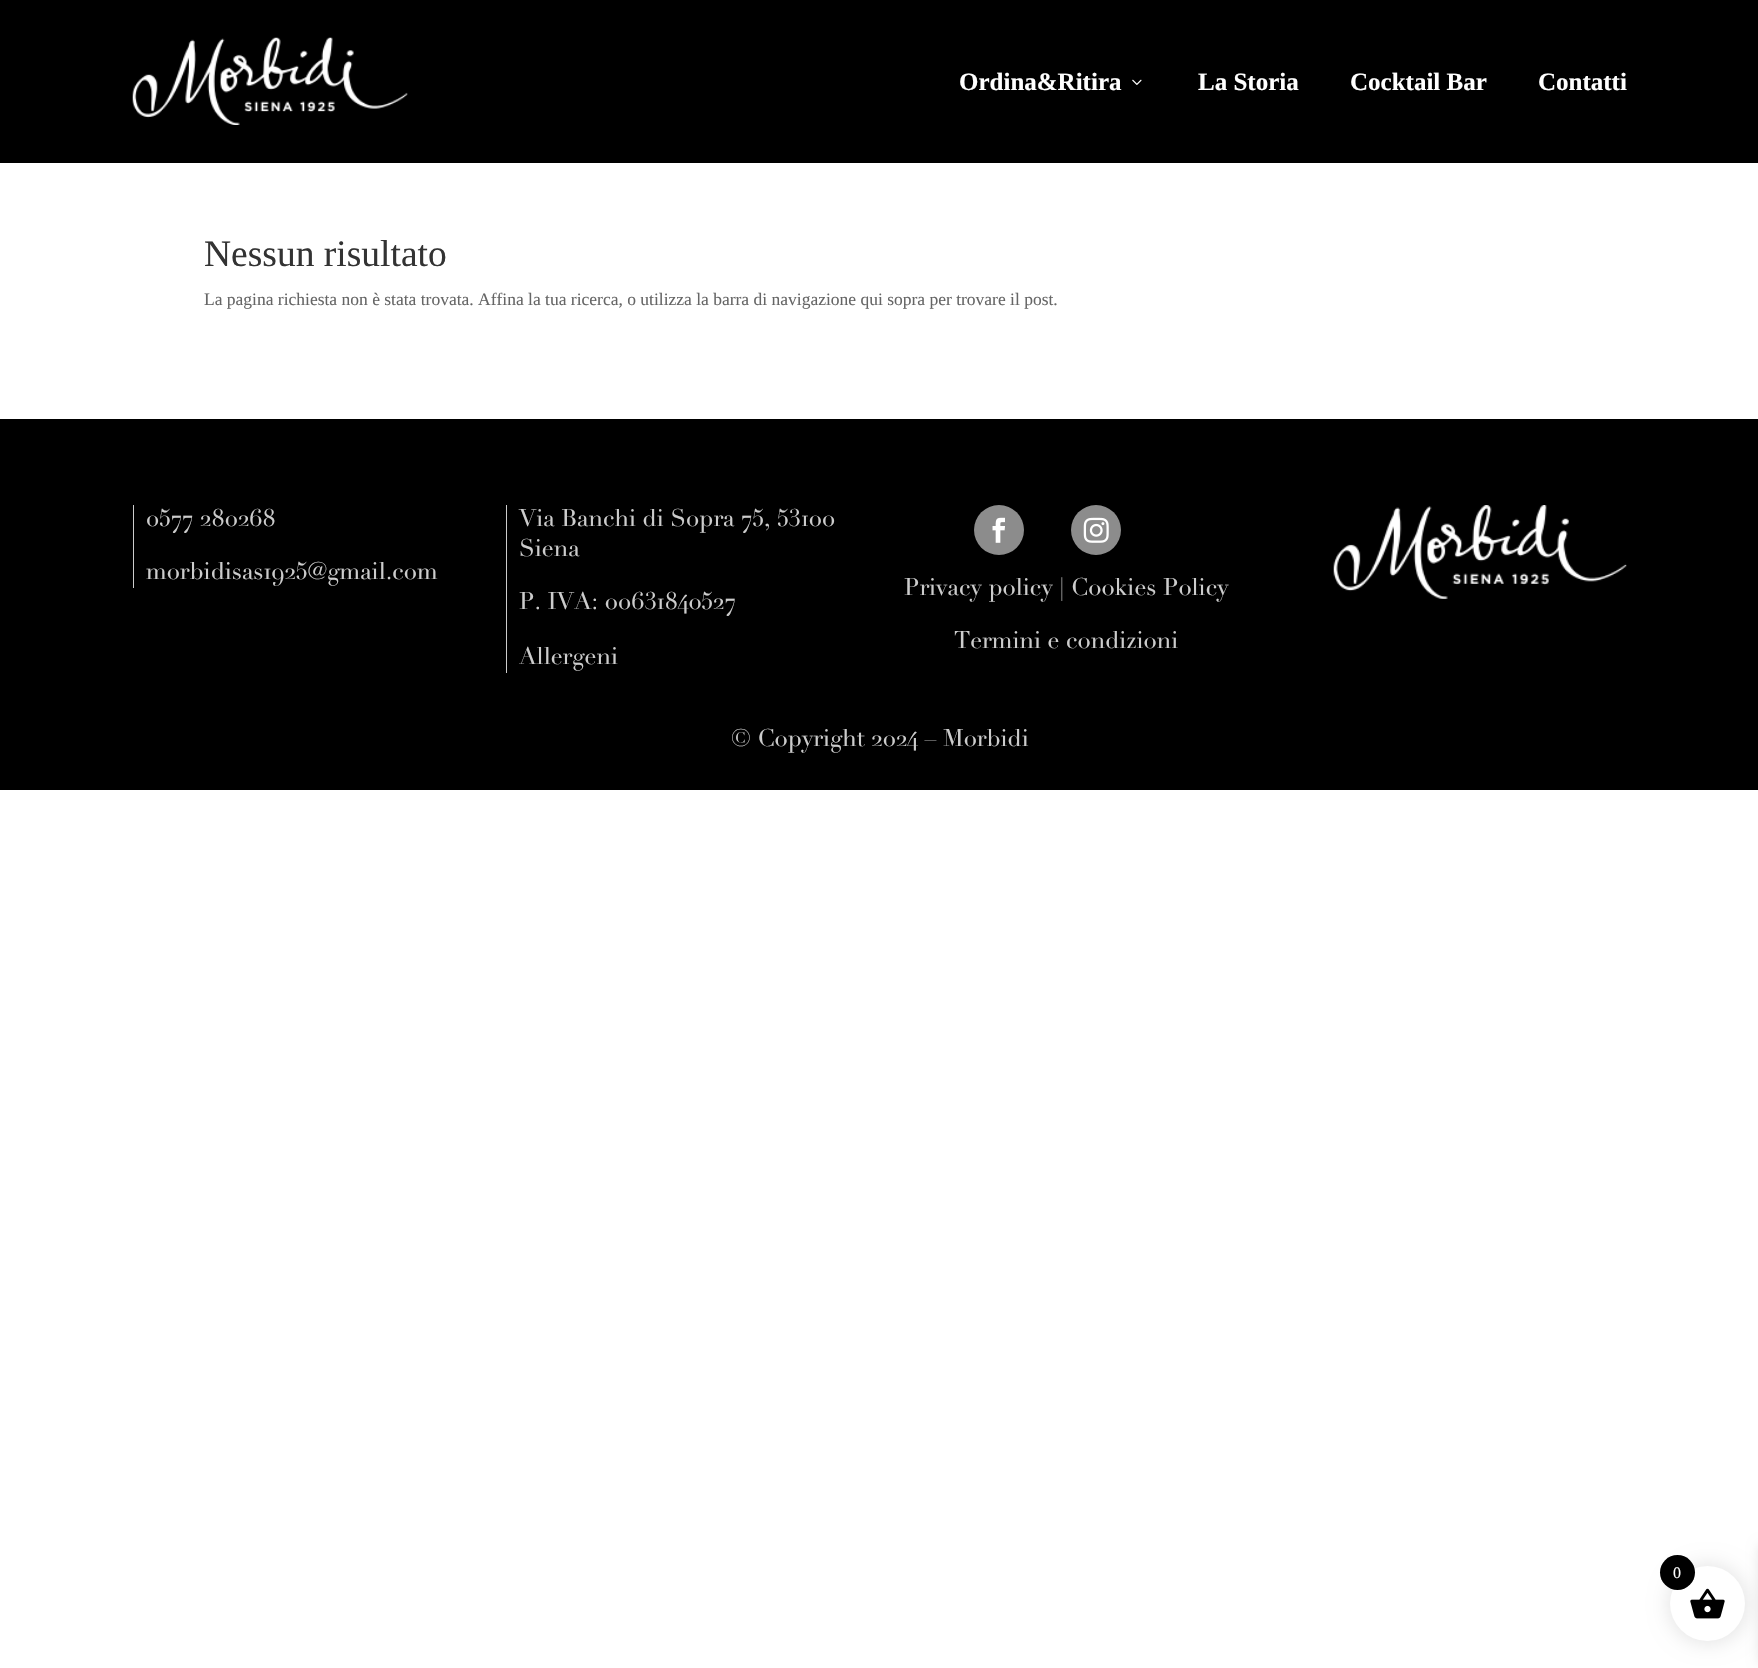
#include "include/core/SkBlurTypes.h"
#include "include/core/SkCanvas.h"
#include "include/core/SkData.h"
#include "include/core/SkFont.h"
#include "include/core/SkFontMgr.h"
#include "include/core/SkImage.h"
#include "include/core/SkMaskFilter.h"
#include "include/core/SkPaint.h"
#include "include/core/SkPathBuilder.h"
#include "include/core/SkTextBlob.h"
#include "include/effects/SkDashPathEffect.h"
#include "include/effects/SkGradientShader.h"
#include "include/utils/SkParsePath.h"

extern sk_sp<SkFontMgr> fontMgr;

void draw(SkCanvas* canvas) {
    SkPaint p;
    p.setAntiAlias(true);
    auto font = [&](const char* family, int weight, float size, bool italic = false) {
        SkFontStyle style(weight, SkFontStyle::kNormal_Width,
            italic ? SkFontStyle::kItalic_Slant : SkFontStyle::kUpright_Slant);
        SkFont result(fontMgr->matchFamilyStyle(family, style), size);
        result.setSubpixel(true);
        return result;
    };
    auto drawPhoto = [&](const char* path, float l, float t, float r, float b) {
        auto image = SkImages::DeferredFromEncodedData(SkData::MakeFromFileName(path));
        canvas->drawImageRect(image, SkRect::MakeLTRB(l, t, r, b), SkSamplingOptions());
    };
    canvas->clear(0xFFFFFFFF);
    p.setColor(0xFF000000);
    canvas->drawRect(SkRect::MakeLTRB(0, 0, 1758, 163), p);
    drawPhoto("media/1.png", 132, 37, 408, 125);
    auto font1 = font("Liberation Serif", 700, 25);
    p.setColor(0xFFFFFFFF);
    canvas->drawString("Ordina&Ritira", 959, 90, font1, p);
    drawPhoto("media/2.png", 1132, 79, 1142, 85);
    {
        const struct { const char* s; float x, y; } items[] = {
            {"La Storia", 1198, 90},
            {"Cocktail Bar", 1350, 90},
            {"Contatti", 1538, 90},
        };
        for (auto [s, x, y] : items) {
            canvas->drawString(s, x, y, font1, p);
        }
    }
    auto font2 = font("Liberation Serif", 400, 37.5f);
    p.setColor(0xFF333333);
    canvas->drawString("Nessun risultato", 204, 266, font2, p);
    auto font3 = font("Liberation Serif", 400, 17.5f);
    p.setColor(0xFF666666);
    canvas->drawString("La pagina richiesta non è stata trovata. Affina la tua ricerca, o utilizza la barra di navigazione qui sopra per trovare il post.", 204, 305, font3, p);
    p.setColor(0xFF000000);
    canvas->drawRect(SkRect::MakeLTRB(0, 419, 1758, 790), p);
    p.setColor(0xFFCCCCCC);
    canvas->drawRect(SkRect::MakeLTRB(133, 505, 134, 588), p);
    auto font4 = font("Didot", 400, 23.75f);
    canvas->drawString("0577 280268", 146, 526, font4, p);
    canvas->drawString("morbidisas1925@gmail.com", 146, 579, font4, p);
    canvas->drawRect(SkRect::MakeLTRB(506, 505, 507, 673), p);
    {
        const struct { const char* s; float x, y; } items[] = {
            {"Via Banchi di Sopra 75, 53100", 519, 526},
            {"Siena", 519, 556},
            {"P. IVA: 00631840527", 519, 609},
            {"Allergeni", 519, 664},
        };
        for (auto [s, x, y] : items) {
            canvas->drawString(s, x, y, font4, p);
        }
    }
    p.setColor(0xFF8C8C8C);
    canvas->drawCircle(999, 530, 25, p);
    drawPhoto("media/3.png", 992, 517, 1005, 543);
    canvas->drawCircle(1096, 530, 25, p);
    drawPhoto("media/4.png", 1083, 517, 1109, 543);
    p.setColor(0xFFCCCCCC);
    canvas->drawString("Privacy policy | Cookies Policy", 904, 595, font4, p);
    canvas->drawString("Termini e condizioni", 954, 648, font4, p);
    drawPhoto("media/5.png", 1333, 505, 1627, 599);
    canvas->drawString("© Copyright 2024 – Morbidi", 731, 746, font4, p);
    p.setColor(0x1A000000);
    p.setMaskFilter(SkMaskFilter::MakeBlur(kNormal_SkBlurStyle, 9.5f));
    canvas->drawRoundRect(SkRect::MakeLTRB(1668, 1564, 1748, 1644), 40, 40, p);
    p.setMaskFilter(nullptr);
    p.setMaskFilter(SkMaskFilter::MakeBlur(kNormal_SkBlurStyle, 6));
    canvas->drawRect(SkRect::MakeLTRB(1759, 1545, 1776, 1663), p);
    p.setMaskFilter(nullptr);
    p.setColor(0xFFFFFFFF);
    canvas->drawCircle(1707.5f, 1603.5f, 37.5f, p);
    drawPhoto("media/6.png", 1690, 1588, 1725, 1619);
    p.setColor(0xFF000000);
    canvas->drawCircle(1677.5f, 1572.5f, 17.5f, p);
    auto font5 = font("Liberation Serif", 400, 16);
    p.setColor(0xFFFFFFFF);
    canvas->drawString("0", 1673, 1578, font5, p);
}
